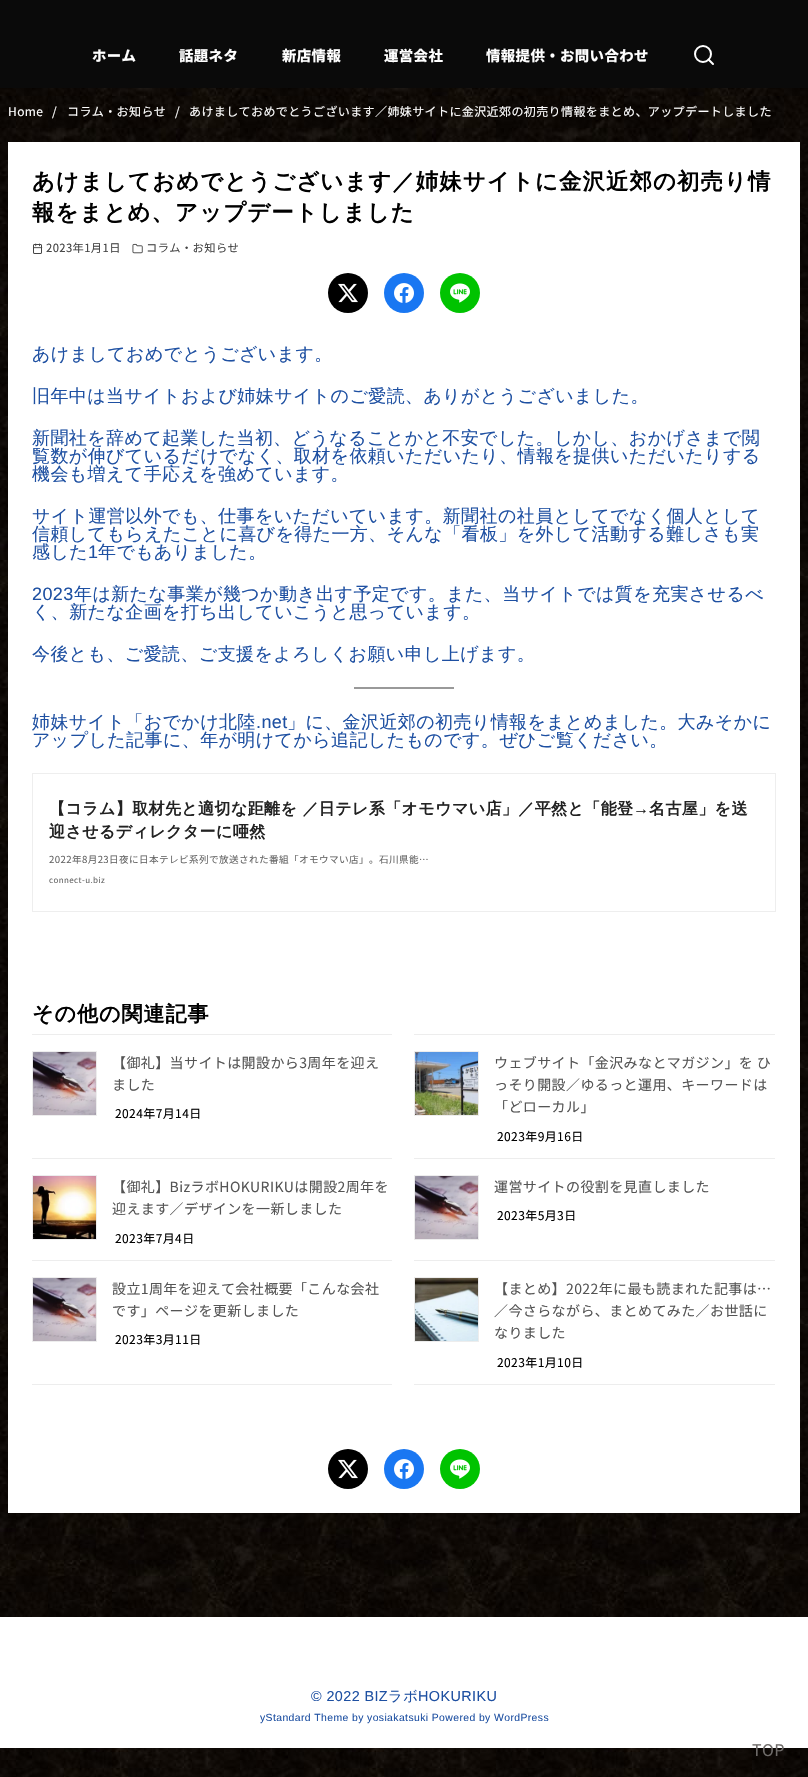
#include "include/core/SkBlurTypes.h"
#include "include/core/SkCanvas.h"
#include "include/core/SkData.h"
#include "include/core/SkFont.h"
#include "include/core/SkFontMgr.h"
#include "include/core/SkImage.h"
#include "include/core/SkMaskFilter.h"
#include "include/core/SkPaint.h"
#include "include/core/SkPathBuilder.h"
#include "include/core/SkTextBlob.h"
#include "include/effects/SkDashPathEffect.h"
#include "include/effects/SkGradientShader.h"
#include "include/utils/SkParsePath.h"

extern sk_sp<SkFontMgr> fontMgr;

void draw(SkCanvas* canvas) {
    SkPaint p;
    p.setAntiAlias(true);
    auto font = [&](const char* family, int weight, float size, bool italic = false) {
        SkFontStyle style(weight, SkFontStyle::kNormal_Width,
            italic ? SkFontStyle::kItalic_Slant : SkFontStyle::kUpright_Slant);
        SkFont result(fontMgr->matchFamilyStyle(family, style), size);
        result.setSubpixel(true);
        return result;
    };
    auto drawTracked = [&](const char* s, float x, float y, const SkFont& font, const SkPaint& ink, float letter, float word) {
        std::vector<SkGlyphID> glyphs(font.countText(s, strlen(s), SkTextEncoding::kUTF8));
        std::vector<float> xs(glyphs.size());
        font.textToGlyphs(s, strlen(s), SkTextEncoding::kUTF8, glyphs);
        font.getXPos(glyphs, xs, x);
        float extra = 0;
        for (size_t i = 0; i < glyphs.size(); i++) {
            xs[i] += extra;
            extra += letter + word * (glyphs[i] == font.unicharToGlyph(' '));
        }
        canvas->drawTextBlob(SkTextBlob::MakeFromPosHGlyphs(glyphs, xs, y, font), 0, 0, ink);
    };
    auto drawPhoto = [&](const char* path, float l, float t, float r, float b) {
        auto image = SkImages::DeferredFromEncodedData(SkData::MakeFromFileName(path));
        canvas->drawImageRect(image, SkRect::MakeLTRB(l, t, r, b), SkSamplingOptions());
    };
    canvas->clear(0xFFFFFFFF);
    drawPhoto("media/1.png", 0, 88, 808, 1777);
    p.setColor(0xFF0A0A0A);
    canvas->drawRect(SkRect::MakeLTRB(0, 0, 808, 88), p);
    auto font1 = font("Noto Sans JP", 800, 14.4f);
    p.setColor(0xFFFFFFFF);
    {
        const struct { const char* s; float x, y; } items[] = {
            {"ホーム", 92, 61},
            {"話題ネタ", 179, 61},
            {"新店情報", 282, 61},
            {"運営会社", 384, 61},
            {"情報提供・お問い合わせ", 486, 61},
        };
        for (auto [s, x, y] : items) {
            drawTracked(s, x, y, font1, p, 0.4f, 0);
        }
    }
    p.setStyle(SkPaint::kStroke_Style);
    p.setStrokeWidth(2);
    canvas->drawCircle(703, 54, 8, p);
    p.setStrokeCap(SkPaint::kRound_Cap);
    p.setStrokeJoin(SkPaint::kRound_Join);
    canvas->drawPath(SkPathBuilder().moveTo(713, 64).lineTo(708.5f, 59.5f).detach(), p);
    auto font2 = font("Noto Sans JP", 400, 12);
    p.setStyle(SkPaint::kFill_Style);
    {
        const struct { const char* s; float x, y; } items[] = {
            {"Home", 8, 116},
            {"/", 52, 116},
            {"コラム・お知らせ", 67, 116},
            {"/", 175, 116},
            {"あけましておめでとうございます／姉妹サイトに金沢近郊の初売り情報をまとめ、アップデートしました", 189, 116},
        };
        for (auto [s, x, y] : items) {
            drawTracked(s, x, y, font2, p, 0.4f, 0);
        }
    }
    canvas->drawRect(SkRect::MakeLTRB(8, 142, 800, 1513), p);
    auto font3 = font("WenQuanYi Zen Hei", 700, 22.4f);
    p.setColor(0xFF000000);
    drawTracked("あけましておめでとうございます／姉妹サイトに金沢近郊の初売り情", 32, 189, font3, p, 1.1f, 0);
    drawTracked("報をまとめ、アップデートしました", 32, 220, font3, p, 1.1f, 0);
    drawPhoto("media/2.png", 33, 243, 43, 254);
    auto font4 = font("Noto Sans JP", 400, 11.25f);
    p.setColor(0xFF444444);
    drawTracked("2023年1月1日", 46, 252, font4, p, 0.4f, 0);
    drawPhoto("media/3.png", 132, 243, 143, 254);
    drawTracked("コラム・お知らせ", 146, 252, font4, p, 0.4f, 0);
    p.setColor(0xFF000000);
    canvas->drawCircle(348, 293, 20, p);
    drawPhoto("media/4.png", 338, 283, 358, 303);
    p.setColor(0xFF1977F2);
    canvas->drawCircle(404, 293, 20, p);
    drawPhoto("media/5.png", 394, 283, 414, 303);
    p.setColor(0xFF00C300);
    canvas->drawCircle(460, 293, 20, p);
    drawPhoto("media/6.png", 450, 283, 470, 303);
    auto font5 = font("WenQuanYi Zen Hei", 500, 18);
    p.setColor(0xFF1E50A2);
    {
        const struct { const char* s; float x, y; } items[] = {
            {"あけましておめでとうございます。", 32, 360},
            {"旧年中は当サイトおよび姉妹サイトのご愛読、ありがとうございました。", 32, 402},
            {"新聞社を辞めて起業した当初、どうなることかと不安でした。しかし、おかげさまで閲", 32, 444},
            {"覧数が伸びているだけでなく、取材を依頼いただいたり、情報を提供いただいたりする", 32, 462},
            {"機会も増えて手応えを強めています。", 32, 480},
            {"サイト運営以外でも、仕事をいただいています。新聞社の社員としてでなく個人として", 32, 522},
            {"信頼してもらえたことに喜びを得た一方、そんな「看板」を外して活動する難しさも実", 32, 540},
            {"感した", 32, 558},
        };
        for (auto [s, x, y] : items) {
            drawTracked(s, x, y, font5, p, 0.4f, 0);
        }
    }
    auto font6 = font("Liberation Sans", 400, 18);
    drawTracked("1", 88, 558, font6, p, 0.4f, 0);
    drawTracked("年でもありました。", 98, 558, font5, p, 0.4f, 0);
    drawTracked("2023", 32, 600, font6, p, 0.4f, 0);
    {
        const struct { const char* s; float x, y; } items[] = {
            {"年は新たな事業が幾つか動き出す予定です。また、当サイトでは質を充実させるべ", 74, 600},
            {"く、新たな企画を打ち出していこうと思っています。", 32, 618},
            {"今後とも、ご愛読、ご支援をよろしくお願い申し上げます。", 32, 660},
        };
        for (auto [s, x, y] : items) {
            drawTracked(s, x, y, font5, p, 0.4f, 0);
        }
    }
    p.setColor(0xFF999999);
    canvas->drawRect(SkRect::MakeLTRB(354, 687, 454, 689), p);
    p.setColor(0xFF1E50A2);
    drawTracked("姉妹サイト「おでかけ北陸", 32, 728, font5, p, 0.4f, 0);
    drawTracked(".net", 256, 728, font6, p, 0.4f, 0);
    drawTracked("」に、金沢近郊の初売り情報をまとめました。大みそかに", 287, 728, font5, p, 0.4f, 0);
    drawTracked("アップした記事に、年が明けてから追記したものです。ぜひご覧ください。", 32, 746, font5, p, 0.4f, 0);
    p.setStyle(SkPaint::kStroke_Style);
    p.setStrokeWidth(1);
    p.setStrokeCap(SkPaint::kButt_Cap);
    p.setStrokeJoin(SkPaint::kMiter_Join);
    p.setColor(0xFFEEEEEE);
    canvas->drawRect(SkRect::MakeLTRB(32.5f, 773.5f, 775.5f, 911.5f), p);
    auto font7 = font("WenQuanYi Zen Hei", 700, 16);
    p.setStyle(SkPaint::kFill_Style);
    p.setColor(0xFF222222);
    drawTracked("【コラム】取材先と適切な距離を ／日テレ系「オモウマい店」／平然と「能登", 49, 814, font7, p, 0.4f, 0);
    auto font8 = font("Liberation Sans", 700, 16);
    drawTracked("→", 633, 814, font8, p, 0.4f, 0);
    drawTracked("名古屋」を送", 649, 814, font7, p, 0.4f, 0);
    drawTracked("迎させるディレクターに唖然", 49, 837, font7, p, 0.4f, 0);
    auto font9 = font("Noto Sans JP", 400, 9.6f);
    p.setColor(0xFF656565);
    drawTracked("2022年8月23日夜に日本テレビ系列で放送された番組「オモウマい店」。石川県能…", 49, 863, font9, p, 0.4f, 0);
    auto font10 = font("Noto Sans JP", 400, 8);
    drawTracked("connect-u.biz", 49, 883, font10, p, 0.4f, 0);
    auto font11 = font("WenQuanYi Zen Hei", 700, 21);
    p.setColor(0xFF000000);
    drawTracked("その他の関連記事", 32, 1021, font11, p, 1, 0);
    p.setColor(0xFFEDEDED);
    canvas->drawRect(SkRect::MakeLTRB(32, 1034, 392, 1035), p);
    canvas->drawRect(SkRect::MakeLTRB(32, 1158, 392, 1159), p);
    p.setStyle(SkPaint::kStroke_Style);
    canvas->drawRect(SkRect::MakeLTRB(32.5f, 1051.5f, 96.5f, 1115.5f), p);
    drawPhoto("media/7.png", 33, 1052, 96, 1115);
    auto font12 = font("Noto Sans JP", 400, 14);
    p.setStyle(SkPaint::kFill_Style);
    p.setColor(0xFF555555);
    drawTracked("【御礼】当サイトは開設から3周年を迎え", 112, 1068, font12, p, 0.4f, 0);
    drawTracked("ました", 112, 1090, font12, p, 0.4f, 0);
    p.setColor(0xFF000000);
    drawTracked("2024年7月14日", 115, 1118, font2, p, 0.4f, 0);
    p.setColor(0xFFEDEDED);
    canvas->drawRect(SkRect::MakeLTRB(414, 1034, 775, 1035), p);
    canvas->drawRect(SkRect::MakeLTRB(414, 1158, 775, 1159), p);
    p.setStyle(SkPaint::kStroke_Style);
    canvas->drawRect(SkRect::MakeLTRB(414.5f, 1051.5f, 478.5f, 1115.5f), p);
    drawPhoto("media/8.png", 415, 1052, 478, 1115);
    p.setStyle(SkPaint::kFill_Style);
    p.setColor(0xFF555555);
    {
        const struct { const char* s; float x, y; } items[] = {
            {"ウェブサイト「金沢みなとマガジン」を ひ", 494, 1068},
            {"っそり開設／ゆるっと運用、キーワードは", 494, 1090},
            {"「どローカル」", 494, 1112},
        };
        for (auto [s, x, y] : items) {
            drawTracked(s, x, y, font12, p, 0.4f, 0);
        }
    }
    p.setColor(0xFF000000);
    drawTracked("2023年9月16日", 497, 1141, font2, p, 0.4f, 0);
    p.setColor(0xFFEDEDED);
    canvas->drawRect(SkRect::MakeLTRB(32, 1260, 392, 1261), p);
    p.setStyle(SkPaint::kStroke_Style);
    canvas->drawRect(SkRect::MakeLTRB(32.5f, 1175.5f, 96.5f, 1239.5f), p);
    drawPhoto("media/9.png", 33, 1176, 96, 1239);
    p.setStyle(SkPaint::kFill_Style);
    p.setColor(0xFF555555);
    drawTracked("【御礼】BizラボHOKURIKUは開設2周年を", 112, 1192, font12, p, 0.4f, 0);
    drawTracked("迎えます／デザインを一新しました", 112, 1214, font12, p, 0.4f, 0);
    p.setColor(0xFF000000);
    drawTracked("2023年7月4日", 115, 1243, font2, p, 0.4f, 0);
    p.setColor(0xFFEDEDED);
    canvas->drawRect(SkRect::MakeLTRB(414, 1260, 775, 1261), p);
    p.setStyle(SkPaint::kStroke_Style);
    canvas->drawRect(SkRect::MakeLTRB(414.5f, 1175.5f, 478.5f, 1239.5f), p);
    drawPhoto("media/10.png", 415, 1176, 478, 1239);
    p.setStyle(SkPaint::kFill_Style);
    p.setColor(0xFF555555);
    drawTracked("運営サイトの役割を見直しました", 494, 1192, font12, p, 0.4f, 0);
    p.setColor(0xFF000000);
    drawTracked("2023年5月3日", 497, 1220, font2, p, 0.4f, 0);
    p.setColor(0xFFEDEDED);
    canvas->drawRect(SkRect::MakeLTRB(32, 1384, 392, 1385), p);
    p.setStyle(SkPaint::kStroke_Style);
    canvas->drawRect(SkRect::MakeLTRB(32.5f, 1277.5f, 96.5f, 1341.5f), p);
    drawPhoto("media/11.png", 33, 1278, 96, 1341);
    p.setStyle(SkPaint::kFill_Style);
    p.setColor(0xFF555555);
    drawTracked("設立1周年を迎えて会社概要「こんな会社", 112, 1294, font12, p, 0.4f, 0);
    drawTracked("です」ページを更新しました", 112, 1316, font12, p, 0.4f, 0);
    p.setColor(0xFF000000);
    drawTracked("2023年3月11日", 115, 1344, font2, p, 0.4f, 0);
    p.setColor(0xFFEDEDED);
    canvas->drawRect(SkRect::MakeLTRB(414, 1384, 775, 1385), p);
    p.setStyle(SkPaint::kStroke_Style);
    canvas->drawRect(SkRect::MakeLTRB(414.5f, 1277.5f, 478.5f, 1341.5f), p);
    drawPhoto("media/12.png", 415, 1278, 478, 1341);
    p.setStyle(SkPaint::kFill_Style);
    p.setColor(0xFF555555);
    {
        const struct { const char* s; float x, y; } items[] = {
            {"【まとめ】2022年に最も読まれた記事は…", 494, 1294},
            {"／今さらながら、まとめてみた／お世話に", 494, 1316},
            {"なりました", 494, 1338},
        };
        for (auto [s, x, y] : items) {
            drawTracked(s, x, y, font12, p, 0.4f, 0);
        }
    }
    p.setColor(0xFF000000);
    drawTracked("2023年1月10日", 497, 1367, font2, p, 0.4f, 0);
    canvas->drawCircle(348, 1469, 20, p);
    drawPhoto("media/4.png", 338, 1459, 358, 1479);
    p.setColor(0xFF1977F2);
    canvas->drawCircle(404, 1469, 20, p);
    drawPhoto("media/5.png", 394, 1459, 414, 1479);
    p.setColor(0xFF00C300);
    canvas->drawCircle(460, 1469, 20, p);
    drawPhoto("media/6.png", 450, 1459, 470, 1479);
    p.setColor(0xFFFFFFFF);
    canvas->drawRect(SkRect::MakeLTRB(0, 1617, 808, 1748), p);
    auto font13 = font("Liberation Sans", 400, 14.4f);
    p.setColor(0xFF1E50A2);
    drawTracked("© 2022 BIZ", 311, 1701, font13, p, 0.4f, 0);
    auto font14 = font("WenQuanYi Zen Hei", 500, 14.4f);
    drawTracked("ラボ", 388, 1701, font14, p, 0.4f, 0);
    drawTracked("HOKURIKU", 418, 1701, font13, p, 0.4f, 0);
    auto font15 = font("Liberation Sans", 400, 10.4f);
    drawTracked("yStandard Theme by yosiakatsuki Powered by WordPress", 260, 1721, font15, p, 0.4f, 0);
    auto font16 = font("Noto Sans JP", 400, 16);
    p.setColor(0xFF6F6C6A);
    drawTracked("TOP", 752, 1756, font16, p, 0.4f, 0);
}
